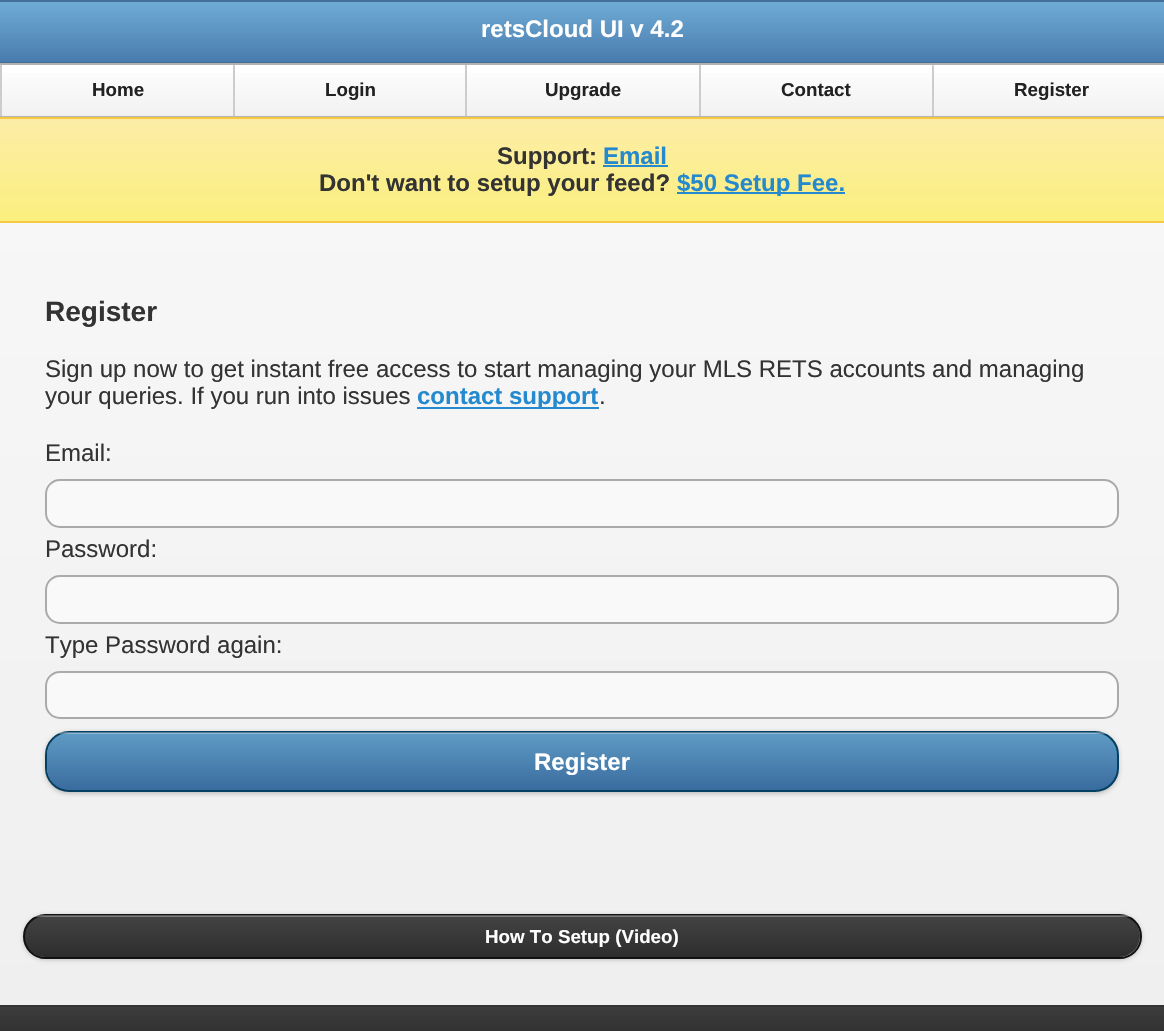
#include "include/core/SkBlurTypes.h"
#include "include/core/SkCanvas.h"
#include "include/core/SkData.h"
#include "include/core/SkFont.h"
#include "include/core/SkFontMgr.h"
#include "include/core/SkImage.h"
#include "include/core/SkMaskFilter.h"
#include "include/core/SkPaint.h"
#include "include/core/SkPathBuilder.h"
#include "include/core/SkTextBlob.h"
#include "include/effects/SkDashPathEffect.h"
#include "include/effects/SkGradientShader.h"
#include "include/utils/SkParsePath.h"

extern sk_sp<SkFontMgr> fontMgr;

void draw(SkCanvas* canvas) {
    SkPaint p;
    p.setAntiAlias(true);
    auto font = [&](const char* family, int weight, float size, bool italic = false) {
        SkFontStyle style(weight, SkFontStyle::kNormal_Width,
            italic ? SkFontStyle::kItalic_Slant : SkFontStyle::kUpright_Slant);
        SkFont result(fontMgr->matchFamilyStyle(family, style), size);
        result.setSubpixel(true);
        return result;
    };
    canvas->clear(0xFFFFFFFF);
    {
        const SkColor colors[] = {0xFFF9F9F9, 0xFFEEEEEE};
        const float stops[] = {0, 1};
        const SkPoint ends[] = {{582, 0}, {582, 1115}};
        p.setShader(SkGradientShader::MakeLinear(ends, colors, stops, 2, SkTileMode::kClamp));
        p.setAlpha(255);
    }
    canvas->drawRect(SkRect::MakeLTRB(0, 223, 1164, 1005), p);
    {
        const SkColor colors[] = {0xFF6FACD5, 0xFF497BAE};
        const float stops[] = {0, 1};
        const SkPoint ends[] = {{582, 1.5f}, {582, 62}};
        p.setShader(SkGradientShader::MakeLinear(ends, colors, stops, 2, SkTileMode::kClamp));
        p.setAlpha(255);
    }
    canvas->drawRect(SkRect::MakeLTRB(0, 2, 1164, 62), p);
    p.setShader(nullptr);
    p.setColor(0xFF456F9A);
    canvas->drawRect(SkRect::MakeLTRB(0, 0, 1164, 2), p);
    canvas->drawRect(SkRect::MakeLTRB(0, 62, 1164, 63), p);
    auto font1 = font("Liberation Sans", 700, 24);
    p.setColor(0xFFFFFFFF);
    canvas->drawString("retsCloud UI v 4.2", 481, 37, font1, p);
    p.setColor(0xFFB3B3B3);
    canvas->drawRect(SkRect::MakeLTRB(0, 63, 1164, 65), p);
    canvas->drawRect(SkRect::MakeLTRB(0, 116, 1164, 117), p);
    {
        const SkColor colors[] = {0xFFFFFFFF, 0xFFF1F1F1};
        const float stops[] = {0, 1};
        const SkPoint ends[] = {{118, 64}, {118, 116}};
        p.setShader(SkGradientShader::MakeLinear(ends, colors, stops, 2, SkTileMode::kClamp));
        p.setAlpha(255);
    }
    canvas->drawRect(SkRect::MakeLTRB(2, 73, 233, 116), p);
    p.setShader(nullptr);
    p.setColor(0xFFCCCCCC);
    canvas->drawRect(SkRect::MakeLTRB(0, 65, 2, 116), p);
    auto font2 = font("Liberation Sans", 700, 18.75f);
    p.setColor(0xFF222222);
    canvas->drawString("Home", 92, 96, font2, p);
    {
        const SkColor colors[] = {0xFFFFFFFF, 0xFFF1F1F1};
        const float stops[] = {0, 1};
        const SkPoint ends[] = {{350, 64}, {350, 116}};
        p.setShader(SkGradientShader::MakeLinear(ends, colors, stops, 2, SkTileMode::kClamp));
        p.setAlpha(255);
    }
    canvas->drawRect(SkRect::MakeLTRB(235, 73, 465, 116), p);
    p.setShader(nullptr);
    p.setColor(0xFFCCCCCC);
    canvas->drawRect(SkRect::MakeLTRB(233, 65, 235, 116), p);
    p.setColor(0xFFDBDBDB);
    canvas->drawRect(SkRect::MakeLTRB(234, 65, 235, 67), p);
    p.setColor(0xFF222222);
    canvas->drawString("Login", 325, 96, font2, p);
    {
        const SkColor colors[] = {0xFFFFFFFF, 0xFFF1F1F1};
        const float stops[] = {0, 1};
        const SkPoint ends[] = {{584, 64}, {584, 116}};
        p.setShader(SkGradientShader::MakeLinear(ends, colors, stops, 2, SkTileMode::kClamp));
        p.setAlpha(255);
    }
    canvas->drawRect(SkRect::MakeLTRB(467, 73, 699, 116), p);
    p.setShader(nullptr);
    p.setColor(0xFFCCCCCC);
    canvas->drawRect(SkRect::MakeLTRB(465, 65, 467, 116), p);
    p.setColor(0xFF222222);
    canvas->drawString("Upgrade", 545, 96, font2, p);
    {
        const SkColor colors[] = {0xFFFFFFFF, 0xFFF1F1F1};
        const float stops[] = {0, 1};
        const SkPoint ends[] = {{817, 64}, {817, 116}};
        p.setShader(SkGradientShader::MakeLinear(ends, colors, stops, 2, SkTileMode::kClamp));
        p.setAlpha(255);
    }
    canvas->drawRect(SkRect::MakeLTRB(701, 73, 932, 116), p);
    p.setShader(nullptr);
    p.setColor(0xFFCCCCCC);
    canvas->drawRect(SkRect::MakeLTRB(699, 65, 701, 116), p);
    p.setColor(0xFF222222);
    canvas->drawString("Contact", 781, 96, font2, p);
    {
        const SkColor colors[] = {0xFFFFFFFF, 0xFFF1F1F1};
        const float stops[] = {0, 1};
        const SkPoint ends[] = {{1052, 64}, {1052, 116}};
        p.setShader(SkGradientShader::MakeLinear(ends, colors, stops, 2, SkTileMode::kClamp));
        p.setAlpha(255);
    }
    canvas->drawRect(SkRect::MakeLTRB(934, 73, 1164, 116), p);
    p.setShader(nullptr);
    p.setColor(0xFFCCCCCC);
    canvas->drawRect(SkRect::MakeLTRB(932, 65, 934, 116), p);
    p.setColor(0xFFDBDBDB);
    canvas->drawRect(SkRect::MakeLTRB(933, 65, 934, 67), p);
    p.setColor(0xFF222222);
    canvas->drawString("Register", 1014, 96, font2, p);
    {
        const SkColor colors[] = {0xFFFCEDA7, 0xFFFBEF7E};
        const float stops[] = {0, 1};
        const SkPoint ends[] = {{582, 118}, {582, 221}};
        p.setShader(SkGradientShader::MakeLinear(ends, colors, stops, 2, SkTileMode::kClamp));
        p.setAlpha(255);
    }
    canvas->drawRect(SkRect::MakeLTRB(0, 119, 1164, 221), p);
    p.setShader(nullptr);
    p.setColor(0xFFF7C942);
    canvas->drawRect(SkRect::MakeLTRB(0, 117, 1164, 119), p);
    canvas->drawRect(SkRect::MakeLTRB(0, 221, 1164, 223), p);
    p.setColor(0xFF333333);
    canvas->drawString("Support:", 497, 164, font1, p);
    p.setColor(0xFF2489CE);
    canvas->drawString("Email", 603, 164, font1, p);
    canvas->drawRect(SkRect::MakeLTRB(603, 165, 668, 167), p);
    p.setColor(0xFF333333);
    canvas->drawString("Don't want to setup your feed?", 319, 191, font1, p);
    p.setColor(0xFF2489CE);
    canvas->drawRect(SkRect::MakeLTRB(677, 192, 845, 194), p);
    canvas->drawString("$50 Setup Fee.", 677, 191, font1, p);
    auto font3 = font("Liberation Sans", 700, 28);
    p.setColor(0xFF333333);
    canvas->drawString("Register", 45, 321, font3, p);
    auto font4 = font("Liberation Sans", 400, 24);
    canvas->drawString("Sign up now to get instant free access to start managing your MLS RETS accounts and managing", 45, 377, font4, p);
    canvas->drawString("your queries. If you run into issues", 45, 404, font4, p);
    p.setColor(0xFF2489CE);
    canvas->drawRect(SkRect::MakeLTRB(417, 407, 599, 409), p);
    canvas->drawString("contact support", 417, 404, font1, p);
    p.setColor(0xFF333333);
    canvas->drawString(".", 599, 404, font4, p);
    canvas->drawString("Email:", 45, 461, font4, p);
    p.setColor(0xFFF9F9F9);
    canvas->drawRoundRect(SkRect::MakeLTRB(46, 480, 1118, 527), 14, 14, p);
    p.setStyle(SkPaint::kStroke_Style);
    p.setStrokeWidth(2);
    p.setColor(0xFFAAAAAA);
    canvas->drawRoundRect(SkRect::MakeLTRB(46, 480, 1118, 527), 14, 14, p);
    p.setStyle(SkPaint::kFill_Style);
    p.setColor(0xFF333333);
    canvas->drawString("Password:", 45, 557, font4, p);
    p.setColor(0xFFF9F9F9);
    canvas->drawRoundRect(SkRect::MakeLTRB(46, 576, 1118, 623), 14, 14, p);
    p.setStyle(SkPaint::kStroke_Style);
    p.setColor(0xFFAAAAAA);
    canvas->drawRoundRect(SkRect::MakeLTRB(46, 576, 1118, 623), 14, 14, p);
    p.setStyle(SkPaint::kFill_Style);
    p.setColor(0xFF333333);
    canvas->drawString("Type Password again:", 45, 653, font4, p);
    p.setColor(0xFFF9F9F9);
    canvas->drawRoundRect(SkRect::MakeLTRB(46, 672, 1118, 718), 14, 14, p);
    p.setStyle(SkPaint::kStroke_Style);
    p.setColor(0xFFAAAAAA);
    canvas->drawRoundRect(SkRect::MakeLTRB(46, 672, 1118, 718), 14, 14, p);
    p.setStyle(SkPaint::kFill_Style);
    p.setColor(0x33000000);
    p.setMaskFilter(SkMaskFilter::MakeBlur(kNormal_SkBlurStyle, 2));
    canvas->drawRoundRect(SkRect::MakeLTRB(45, 732, 1119, 794), 24, 24, p);
    p.setMaskFilter(nullptr);
    {
        const SkColor colors[] = {0xFF5F9CC5, 0xFF396B9E};
        const float stops[] = {0, 1};
        const SkPoint ends[] = {{582, 732}, {582, 791}};
        p.setShader(SkGradientShader::MakeLinear(ends, colors, stops, 2, SkTileMode::kClamp));
        p.setAlpha(255);
    }
    canvas->drawRoundRect(SkRect::MakeLTRB(47, 732, 1118, 791), 23, 23, p);
    p.setStyle(SkPaint::kStroke_Style);
    p.setShader(nullptr);
    p.setColor(0xFF044062);
    canvas->drawRoundRect(SkRect::MakeLTRB(46, 732, 1118, 791), 23, 23, p);
    p.setStyle(SkPaint::kFill_Style);
    p.setColor(0x4DFFFFFF);
    canvas->drawRect(SkRect::MakeLTRB(59, 732, 1106, 734), p);
    p.setColor(0xFFFFFFFF);
    canvas->drawString("Register", 534, 770, font1, p);
    p.setColor(0x33000000);
    p.setMaskFilter(SkMaskFilter::MakeBlur(kNormal_SkBlurStyle, 2));
    canvas->drawRoundRect(SkRect::MakeLTRB(23, 915, 1142, 960), 22.5f, 22.5f, p);
    p.setMaskFilter(nullptr);
    {
        const SkColor colors[] = {0xFF444444, 0xFF2D2D2D};
        const float stops[] = {0, 1};
        const SkPoint ends[] = {{582, 915}, {582, 957}};
        p.setShader(SkGradientShader::MakeLinear(ends, colors, stops, 2, SkTileMode::kClamp));
        p.setAlpha(255);
    }
    canvas->drawRoundRect(SkRect::MakeLTRB(24, 915, 1140, 957), 21, 21, p);
    p.setStyle(SkPaint::kStroke_Style);
    p.setShader(nullptr);
    p.setColor(0xFF111111);
    canvas->drawRoundRect(SkRect::MakeLTRB(24, 915, 1141, 958), 21.5f, 21.5f, p);
    p.setStyle(SkPaint::kFill_Style);
    p.setColor(0x4DFFFFFF);
    canvas->drawRect(SkRect::MakeLTRB(35, 915, 1130, 917), p);
    p.setColor(0xFFFFFFFF);
    canvas->drawString("How To Setup (Video)", 485, 943, font2, p);
    {
        const SkColor colors[] = {0xFF3C3C3C, 0xFF111111};
        const float stops[] = {0, 1};
        const SkPoint ends[] = {{582, 1007}, {582, 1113}};
        p.setShader(SkGradientShader::MakeLinear(ends, colors, stops, 2, SkTileMode::kClamp));
        p.setAlpha(255);
    }
    canvas->drawRect(SkRect::MakeLTRB(0, 1007, 1164, 1031), p);
    p.setShader(nullptr);
    p.setColor(0xFF333333);
    canvas->drawRect(SkRect::MakeLTRB(0, 1005, 1164, 1007), p);
}
